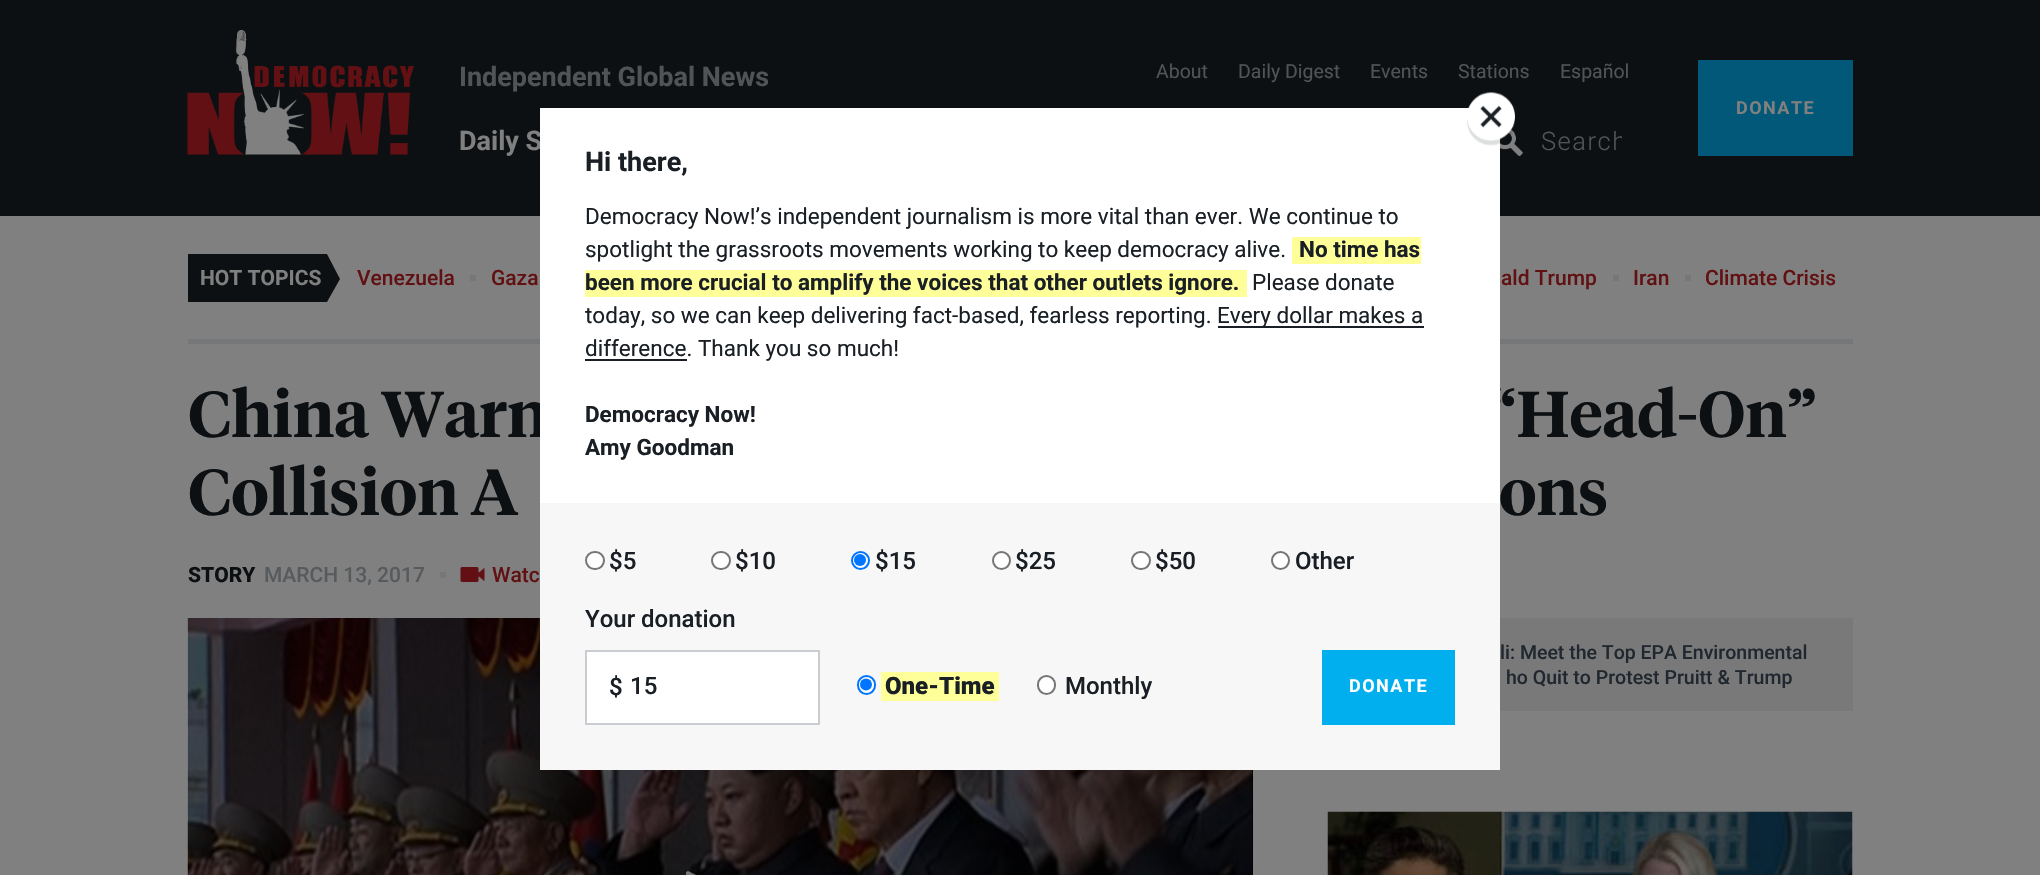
#include "include/core/SkBlurTypes.h"
#include "include/core/SkCanvas.h"
#include "include/core/SkData.h"
#include "include/core/SkFont.h"
#include "include/core/SkFontMgr.h"
#include "include/core/SkImage.h"
#include "include/core/SkMaskFilter.h"
#include "include/core/SkPaint.h"
#include "include/core/SkPathBuilder.h"
#include "include/core/SkTextBlob.h"
#include "include/effects/SkDashPathEffect.h"
#include "include/effects/SkGradientShader.h"
#include "include/utils/SkParsePath.h"

extern sk_sp<SkFontMgr> fontMgr;

void draw(SkCanvas* canvas) {
    SkPaint p;
    p.setAntiAlias(true);
    auto font = [&](const char* family, int weight, float size, bool italic = false) {
        SkFontStyle style(weight, SkFontStyle::kNormal_Width,
            italic ? SkFontStyle::kItalic_Slant : SkFontStyle::kUpright_Slant);
        SkFont result(fontMgr->matchFamilyStyle(family, style), size);
        result.setSubpixel(true);
        return result;
    };
    auto drawTracked = [&](const char* s, float x, float y, const SkFont& font, const SkPaint& ink, float letter, float word) {
        std::vector<SkGlyphID> glyphs(font.countText(s, strlen(s), SkTextEncoding::kUTF8));
        std::vector<float> xs(glyphs.size());
        font.textToGlyphs(s, strlen(s), SkTextEncoding::kUTF8, glyphs);
        font.getXPos(glyphs, xs, x);
        float extra = 0;
        for (size_t i = 0; i < glyphs.size(); i++) {
            xs[i] += extra;
            extra += letter + word * (glyphs[i] == font.unicharToGlyph(' '));
        }
        canvas->drawTextBlob(SkTextBlob::MakeFromPosHGlyphs(glyphs, xs, y, font), 0, 0, ink);
    };
    auto drawPhoto = [&](const char* path, float l, float t, float r, float b) {
        auto image = SkImages::DeferredFromEncodedData(SkData::MakeFromFileName(path));
        canvas->drawImageRect(image, SkRect::MakeLTRB(l, t, r, b), SkSamplingOptions());
    };
    canvas->clear(0xFF808080);
    p.setColor(0xFF0D1012);
    canvas->drawRect(SkRect::MakeLTRB(0, 0, 2040, 216), p);
    drawPhoto("media/1.png", 187, 30, 414, 155);
    auto font1 = font("Roboto", 700, 27);
    p.setColor(0xFF515457);
    canvas->drawString("Independent Global News", 459, 86, font1, p);
    auto font2 = font("Roboto", 400, 19.5f);
    {
        const struct { const char* s; float x, y; } items[] = {
            {"About", 1156, 78},
            {"Daily Digest", 1238, 78},
            {"Events", 1370, 78},
            {"Stations", 1458, 78},
            {"Español", 1560, 78},
        };
        for (auto [s, x, y] : items) {
            canvas->drawString(s, x, y, font2, p);
        }
    }
    p.setColor(0xFF808080);
    canvas->drawString("Daily S", 459, 150, font1, p);
    drawPhoto("media/2.png", 1500, 129, 1523, 156);
    canvas->save();
    canvas->clipRect(SkRect::MakeLTRB(1541, 126, 1622, 156));
    auto font3 = font("Roboto", 300, 25.5f);
    p.setColor(0xFF515457);
    drawTracked("Search", 1541, 150, font3, p, 1.5f, 0);
    canvas->restore();
    p.setColor(0xFF015878);
    canvas->drawRect(SkRect::MakeLTRB(1698, 60, 1853, 156), p);
    auto font4 = font("Roboto", 700, 18);
    p.setColor(0xFF808080);
    drawTracked("DONATE", 1736, 114, font4, p, 1.5f, 0);
    p.setColor(0xFF767778);
    canvas->drawRect(SkRect::MakeLTRB(188, 339, 1853, 344), p);
    auto font5 = font("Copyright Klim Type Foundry", 600, 64.5f);
    p.setColor(0xFF0D1012);
    canvas->drawString("China Warn", 188, 437, font5, p);
    canvas->drawString("“Head-On”", 1486, 437, font5, p);
    p.setColor(0xFFFFFFFF);
    canvas->drawRect(SkRect::MakeLTRB(540, 108, 1500, 503), p);
    drawPhoto("media/3.png", 1467, 92, 1515, 146);
    p.setColor(0xFF191F24);
    canvas->drawString("Hi there,", 585, 171, font1, p);
    auto font6 = font("Roboto", 400, 22.5f);
    canvas->drawString("Democracy Now!’s independent journalism is more vital than ever. We continue to", 585, 224, font6, p);
    canvas->drawString("spotlight the grassroots movements working to keep democracy alive.", 585, 257, font6, p);
    p.setColor(0xFFFFFF99);
    canvas->drawRect(SkRect::MakeLTRB(1292, 237, 1421, 264), p);
    auto font7 = font("Roboto", 700, 22.5f);
    p.setColor(0xFF191F24);
    canvas->drawString("No time has", 1299, 257, font7, p);
    p.setColor(0xFFFFFF99);
    canvas->drawRect(SkRect::MakeLTRB(585, 270, 1247, 297), p);
    p.setColor(0xFF191F24);
    canvas->drawString("been more crucial to amplify the voices that other outlets ignore.", 585, 290, font7, p);
    canvas->drawString("Please donate", 1252, 290, font6, p);
    canvas->drawString("today, so we can keep delivering fact-based, fearless reporting.", 585, 323, font6, p);
    canvas->drawRect(SkRect::MakeLTRB(1218, 326, 1424, 328), p);
    canvas->drawString("Every dollar makes a", 1217, 323, font6, p);
    canvas->drawRect(SkRect::MakeLTRB(585, 359, 687, 361), p);
    canvas->drawString("difference. Thank you so much!", 585, 356, font6, p);
    canvas->drawString("Democracy Now!", 585, 422, font7, p);
    canvas->drawString("Amy Goodman", 585, 455, font7, p);
    p.setColor(0xFF000000);
    canvas->drawRect(SkRect::MakeLTRB(1252, 770, 1253, 875), p);
    drawPhoto("media/5.png", 187, 618, 1253, 875);
    p.setColor(0xFFF7F7F7);
    canvas->drawRect(SkRect::MakeLTRB(540, 503, 1500, 770), p);
    p.setColor(0xFFFFFFFF);
    canvas->drawRoundRect(SkRect::MakeLTRB(586, 552, 604, 569), 8.5f, 8.5f, p);
    p.setStyle(SkPaint::kStroke_Style);
    p.setStrokeWidth(2);
    p.setColor(0xFF767676);
    canvas->drawRoundRect(SkRect::MakeLTRB(586, 552, 604, 569), 8.5f, 8.5f, p);
    auto font8 = font("Roboto", 500, 24);
    p.setStyle(SkPaint::kFill_Style);
    p.setColor(0xFF191F24);
    canvas->drawString("$5", 609, 569, font8, p);
    p.setColor(0xFFFFFFFF);
    canvas->drawRoundRect(SkRect::MakeLTRB(712, 552, 730, 569), 8.5f, 8.5f, p);
    p.setStyle(SkPaint::kStroke_Style);
    p.setColor(0xFF767676);
    canvas->drawRoundRect(SkRect::MakeLTRB(712, 552, 730, 569), 8.5f, 8.5f, p);
    p.setStyle(SkPaint::kFill_Style);
    p.setColor(0xFF191F24);
    canvas->drawString("$10", 735, 569, font8, p);
    p.setColor(0xFFFFFFFF);
    canvas->drawCircle(860.5f, 560.5f, 8.5f, p);
    p.setStyle(SkPaint::kStroke_Style);
    p.setColor(0xFF0075FF);
    canvas->drawCircle(860.5f, 560.5f, 8.5f, p);
    p.setStyle(SkPaint::kFill_Style);
    canvas->drawCircle(860, 560, 6, p);
    p.setColor(0xFF191F24);
    canvas->drawString("$15", 875, 569, font8, p);
    p.setColor(0xFFFFFFFF);
    canvas->drawCircle(1001.5f, 560.5f, 8.5f, p);
    p.setStyle(SkPaint::kStroke_Style);
    p.setColor(0xFF767676);
    canvas->drawCircle(1001.5f, 560.5f, 8.5f, p);
    p.setStyle(SkPaint::kFill_Style);
    p.setColor(0xFF191F24);
    canvas->drawString("$25", 1015, 569, font8, p);
    p.setColor(0xFFFFFFFF);
    canvas->drawRoundRect(SkRect::MakeLTRB(1132, 552, 1150, 569), 8.5f, 8.5f, p);
    p.setStyle(SkPaint::kStroke_Style);
    p.setColor(0xFF767676);
    canvas->drawRoundRect(SkRect::MakeLTRB(1132, 552, 1150, 569), 8.5f, 8.5f, p);
    p.setStyle(SkPaint::kFill_Style);
    p.setColor(0xFF191F24);
    canvas->drawString("$50", 1155, 569, font8, p);
    p.setColor(0xFFFFFFFF);
    canvas->drawCircle(1280.5f, 560.5f, 8.5f, p);
    p.setStyle(SkPaint::kStroke_Style);
    p.setColor(0xFF767676);
    canvas->drawCircle(1280.5f, 560.5f, 8.5f, p);
    p.setStyle(SkPaint::kFill_Style);
    p.setColor(0xFF191F24);
    canvas->drawString("Other", 1295, 569, font8, p);
    canvas->drawString("Your donation", 585, 627, font8, p);
    {
        const struct { float l, t, r, b; SkColor color; } items[] = {
            {587, 652, 818, 723, 0xFFFFFFFF},
            {585, 650, 819, 652, 0xFFC9CDD1},
            {585, 723, 702, 725, 0xFFC9CDD1},
            {585, 650, 587, 725, 0xFFC9CDD1},
        };
        for (auto [l, t, r, b, color] : items) {
            p.setColor(color);
            canvas->drawRect(SkRect::MakeLTRB(l, t, r, b), p);
        }
    }
    p.setColor(0xFF191F24);
    canvas->drawString("$", 609, 695, font8, p);
    canvas->drawString("15", 630, 694, font8, p);
    p.setColor(0xFFC9CDD1);
    canvas->drawRect(SkRect::MakeLTRB(818, 650, 820, 725), p);
    canvas->drawRect(SkRect::MakeLTRB(702, 723, 819, 725), p);
    p.setColor(0xFFFFFFFF);
    canvas->drawRoundRect(SkRect::MakeLTRB(858, 676, 875, 694), 8.5f, 8.5f, p);
    p.setStyle(SkPaint::kStroke_Style);
    p.setColor(0xFF0075FF);
    canvas->drawRoundRect(SkRect::MakeLTRB(858, 676, 875, 694), 8.5f, 8.5f, p);
    p.setStyle(SkPaint::kFill_Style);
    canvas->drawCircle(866, 684.5f, 6, p);
    p.setColor(0xFFFFFF99);
    canvas->drawRect(SkRect::MakeLTRB(881, 672, 999, 701), p);
    auto font9 = font("Roboto", 900, 24);
    p.setColor(0xFF191F24);
    canvas->drawString("One-Time", 885, 694, font9, p);
    p.setColor(0xFFFFFFFF);
    canvas->drawRoundRect(SkRect::MakeLTRB(1038, 676, 1055, 694), 8.5f, 8.5f, p);
    p.setStyle(SkPaint::kStroke_Style);
    p.setColor(0xFF767676);
    canvas->drawRoundRect(SkRect::MakeLTRB(1038, 676, 1055, 694), 8.5f, 8.5f, p);
    p.setStyle(SkPaint::kFill_Style);
    p.setColor(0xFF191F24);
    canvas->drawString("Monthly", 1065, 694, font8, p);
    p.setColor(0xFF01AFEF);
    canvas->drawRect(SkRect::MakeLTRB(1322, 650, 1455, 725), p);
    p.setColor(0xFFFFFFFF);
    drawTracked("DONATE", 1349, 692, font4, p, 1.5f, 0);
    p.setColor(0xFF0D1012);
    canvas->drawRect(SkRect::MakeLTRB(188, 254, 327, 302), p);
    auto font10 = font("Roboto", 700, 21);
    p.setColor(0xFF808080);
    canvas->drawString("HOT TOPICS", 200, 285, font10, p);
    p.setColor(0xFF0D1012);
    canvas->drawPath(SkPathBuilder().moveTo(327, 302).lineTo(327, 254).lineTo(340, 279).close().detach(), p);
    auto font11 = font("Roboto", 500, 21);
    p.setColor(0xFF621113);
    canvas->drawString("Venezuela", 357, 285, font11, p);
    p.setColor(0xFF767778);
    canvas->drawRect(SkRect::MakeLTRB(470, 275, 476, 281), p);
    p.setColor(0xFF621113);
    canvas->drawString("Gaza", 491, 285, font11, p);
    canvas->drawString("ald Trump", 1501, 285, font11, p);
    p.setColor(0xFF767778);
    canvas->drawRect(SkRect::MakeLTRB(1613, 275, 1619, 281), p);
    p.setColor(0xFF621113);
    canvas->drawString("Iran", 1633, 285, font11, p);
    p.setColor(0xFF767778);
    canvas->drawRect(SkRect::MakeLTRB(1685, 275, 1691, 281), p);
    p.setColor(0xFF621113);
    canvas->drawString("Climate Crisis", 1705, 285, font11, p);
    p.setColor(0xFF0D1012);
    canvas->drawString("Collision A", 188, 515, font5, p);
    canvas->drawString("ons", 1499, 515, font5, p);
    auto font12 = font("Roboto", 800, 21);
    canvas->drawString("STORY", 188, 582, font12, p);
    p.setColor(0xFF585B5D);
    canvas->drawString("MARCH 13, 2017", 264, 582, font11, p);
    p.setColor(0xFF767778);
    canvas->drawRect(SkRect::MakeLTRB(440, 572, 446, 578), p);
    drawPhoto("media/4.png", 460, 567, 485, 582);
    p.setColor(0xFF621113);
    canvas->drawString("Watc", 492, 582, font11, p);
    p.setColor(0xE6808080);
    canvas->drawPath(SkPathBuilder().moveTo(689, 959).cubicTo(688, 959, 687, 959, 687, 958).lineTo(686, 872).lineTo(688, 871).lineTo(774, 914).cubicTo(774, 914, 775, 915, 774, 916).close().detach(), p);
    p.setColor(0xFF79797A);
    canvas->drawRect(SkRect::MakeLTRB(1500, 618, 1853, 711), p);
    auto font13 = font("Roboto", 500, 19.5f);
    p.setColor(0xFF20272E);
    canvas->drawString("li: Meet the Top EPA Environmental", 1500, 659, font13, p);
    canvas->drawString("ho Quit to Protest Pruitt & Trump", 1506, 684, font13, p);
    drawPhoto("media/6.png", 1327, 811, 1853, 875);
}
